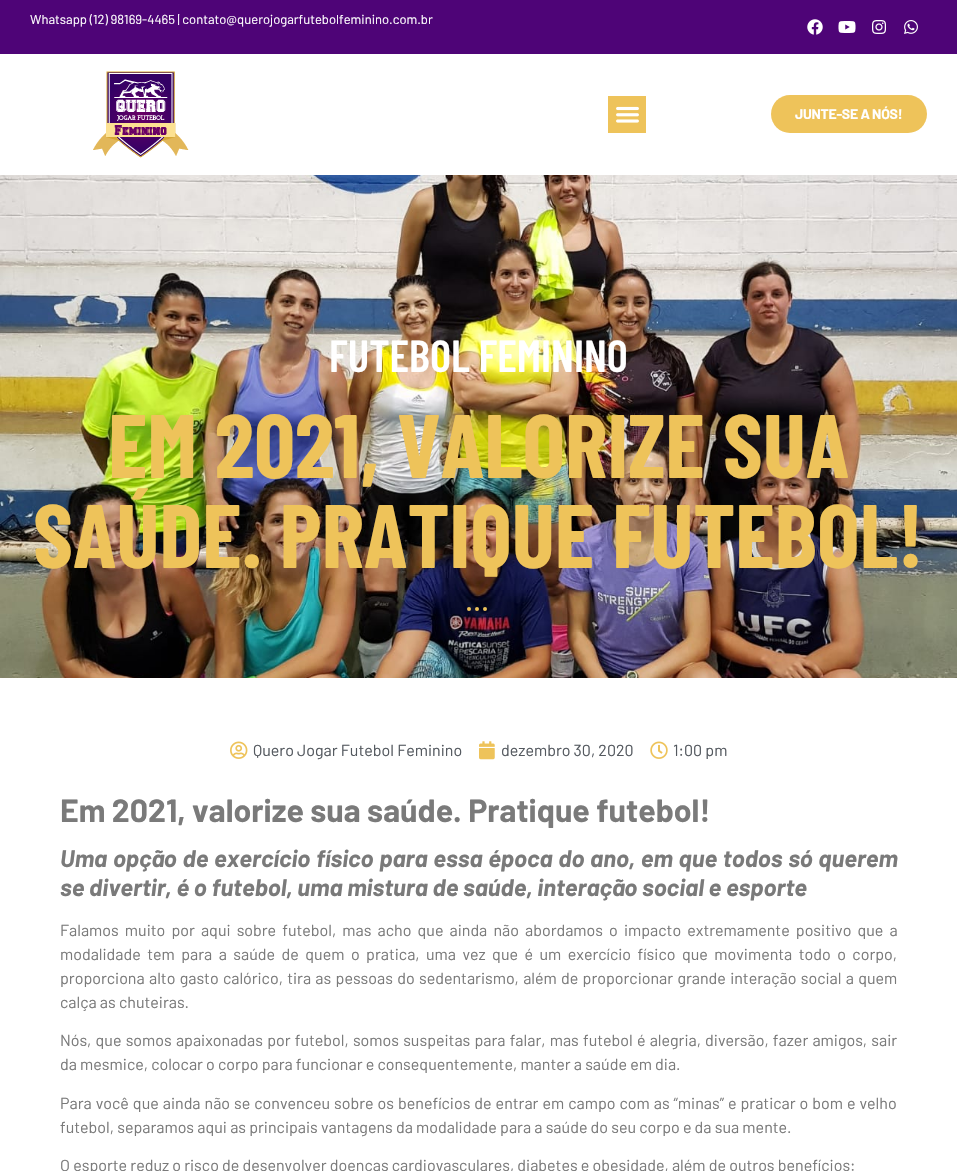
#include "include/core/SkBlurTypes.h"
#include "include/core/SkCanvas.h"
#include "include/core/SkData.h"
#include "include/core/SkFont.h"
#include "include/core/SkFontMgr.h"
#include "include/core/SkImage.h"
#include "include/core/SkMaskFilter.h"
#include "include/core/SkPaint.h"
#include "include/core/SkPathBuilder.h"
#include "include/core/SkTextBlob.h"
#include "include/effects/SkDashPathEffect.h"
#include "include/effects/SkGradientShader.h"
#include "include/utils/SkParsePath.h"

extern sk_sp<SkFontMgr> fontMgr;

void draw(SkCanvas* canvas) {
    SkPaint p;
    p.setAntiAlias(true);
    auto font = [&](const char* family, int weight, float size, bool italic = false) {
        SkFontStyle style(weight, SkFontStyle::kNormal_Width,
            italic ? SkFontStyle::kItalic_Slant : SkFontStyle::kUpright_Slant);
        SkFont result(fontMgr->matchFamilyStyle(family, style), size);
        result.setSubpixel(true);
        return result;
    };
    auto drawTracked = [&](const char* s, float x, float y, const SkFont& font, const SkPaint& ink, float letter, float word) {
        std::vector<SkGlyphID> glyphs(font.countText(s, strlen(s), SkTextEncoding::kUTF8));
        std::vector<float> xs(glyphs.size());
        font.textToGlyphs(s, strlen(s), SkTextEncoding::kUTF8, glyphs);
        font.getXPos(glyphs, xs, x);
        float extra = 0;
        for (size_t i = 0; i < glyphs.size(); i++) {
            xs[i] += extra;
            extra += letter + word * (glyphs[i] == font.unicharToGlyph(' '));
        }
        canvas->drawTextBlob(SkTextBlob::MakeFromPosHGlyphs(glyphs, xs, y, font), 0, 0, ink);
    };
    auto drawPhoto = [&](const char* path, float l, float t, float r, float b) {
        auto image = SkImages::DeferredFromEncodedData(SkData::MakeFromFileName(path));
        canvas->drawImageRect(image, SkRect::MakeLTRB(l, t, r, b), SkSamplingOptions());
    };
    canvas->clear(0xFFFFFFFF);
    p.setColor(0xFF4E0477);
    canvas->drawRect(SkRect::MakeLTRB(0, 0, 957, 54), p);
    auto font1 = font("Barlow", 400, 13);
    p.setColor(0xFFFFFFFF);
    canvas->drawString("Whatsapp (12) 98169-4465 | contato@querojogarfutebolfeminino.com.br", 30, 24, font1, p);
    drawPhoto("media/1.png", 807, 19, 823, 35);
    drawPhoto("media/2.png", 838, 21, 856, 33);
    drawPhoto("media/3.png", 872, 20, 886, 34);
    drawPhoto("media/4.png", 904, 20, 918, 34);
    drawPhoto("media/5.png", 93, 71, 189, 158);
    p.setColor(0xFFEEC35A);
    canvas->drawRect(SkRect::MakeLTRB(608, 96, 646, 133), p);
    drawPhoto("media/6.png", 616, 106, 639, 123);
    canvas->drawRoundRect(SkRect::MakeLTRB(771, 95, 927, 133), 19, 19, p);
    auto font2 = font("Barlow", 700, 14);
    p.setColor(0xFFFFFFFF);
    drawTracked("JUNTE-SE A NÓS!", 795, 119, font2, p, -0.25f, 0);
    drawPhoto("media/7.png", 0, 175, 957, 678);
    auto font3 = font("Barlow Condensed", 600, 45);
    canvas->drawString("FUTEBOL FEMININO", 329, 372, font3, p);
    auto font4 = font("Barlow Condensed", 700, 90);
    p.setColor(0xFFEEC35A);
    canvas->drawString("EM 2021, VALORIZE SUA", 108, 478, font4, p);
    canvas->drawString("SAÚDE. PRATIQUE FUTEBOL!", 33, 568, font4, p);
    p.setStyle(SkPaint::kStroke_Style);
    p.setStrokeWidth(4);
    p.setStrokeCap(SkPaint::kRound_Cap);
    p.setPathEffect(SkDashPathEffect::Make({{0, 8}}, 0));
    canvas->drawPath(SkPathBuilder().moveTo(469, 609).lineTo(488, 609).detach(), p);
    p.setPathEffect(nullptr);
    drawPhoto("media/8.png", 230, 741, 248, 759);
    auto font5 = font("Barlow", 400, 16);
    p.setStyle(SkPaint::kFill_Style);
    p.setColor(0xFF54595F);
    canvas->drawString("Quero Jogar Futebol Feminino", 253, 756, font5, p);
    drawPhoto("media/9.png", 479, 741, 495, 760);
    canvas->drawString("dezembro 30, 2020", 501, 756, font5, p);
    drawPhoto("media/10.png", 650, 741, 668, 759);
    canvas->drawString("1:00 pm", 673, 756, font5, p);
    auto font6 = font("Barlow", 700, 32);
    p.setColor(0xFF7A7A7A);
    canvas->drawString("Em 2021, valorize sua saúde. Pratique futebol!", 60, 822, font6, p);
    auto font7 = font("Barlow", 700, 24, true);
    drawTracked("Uma opção de exercício físico para essa época do ano, em que todos só querem", 60, 867, font7, p, 0, 1);
    canvas->drawString("se divertir, é o futebol, uma mistura de saúde, interação social e esporte", 60, 896, font7, p);
    drawTracked("Falamos muito por aqui sobre futebol, mas acho que ainda não abordamos o impacto extremamente positivo que a", 60, 936, font5, p, 0, 2.9f);
    drawTracked("modalidade tem para a saúde de quem o pratica, uma vez que é um exercício físico que movimenta todo o corpo,", 60, 960, font5, p, 0, 3.25f);
    drawTracked("proporciona alto gasto calórico, tira as pessoas do sedentarismo, além de proporcionar grande interação social a quem", 60, 984, font5, p, 0, 1.1f);
    canvas->drawString("calça as chuteiras.", 60, 1008, font5, p);
    drawTracked("Nós, que somos apaixonadas por futebol, somos suspeitas para falar, mas futebol é alegria, diversão, fazer amigos, sair", 60, 1046, font5, p, 0, 1);
    canvas->drawString("da mesmice, colocar o corpo para funcionar e consequentemente, manter a saúde em dia.", 60, 1070, font5, p);
    drawTracked("Para você que ainda não se convenceu sobre os benefícios de entrar em campo com as “minas” e praticar o bom e velho", 60, 1109, font5, p, 0, 0.8f);
    canvas->drawString("futebol, separamos aqui as principais vantagens da modalidade para a saúde do seu corpo e da sua mente.", 60, 1133, font5, p);
    canvas->drawString("O esporte reduz o risco de desenvolver doenças cardiovasculares, diabetes e obesidade, além de outros benefícios:", 60, 1171, font5, p);
}
